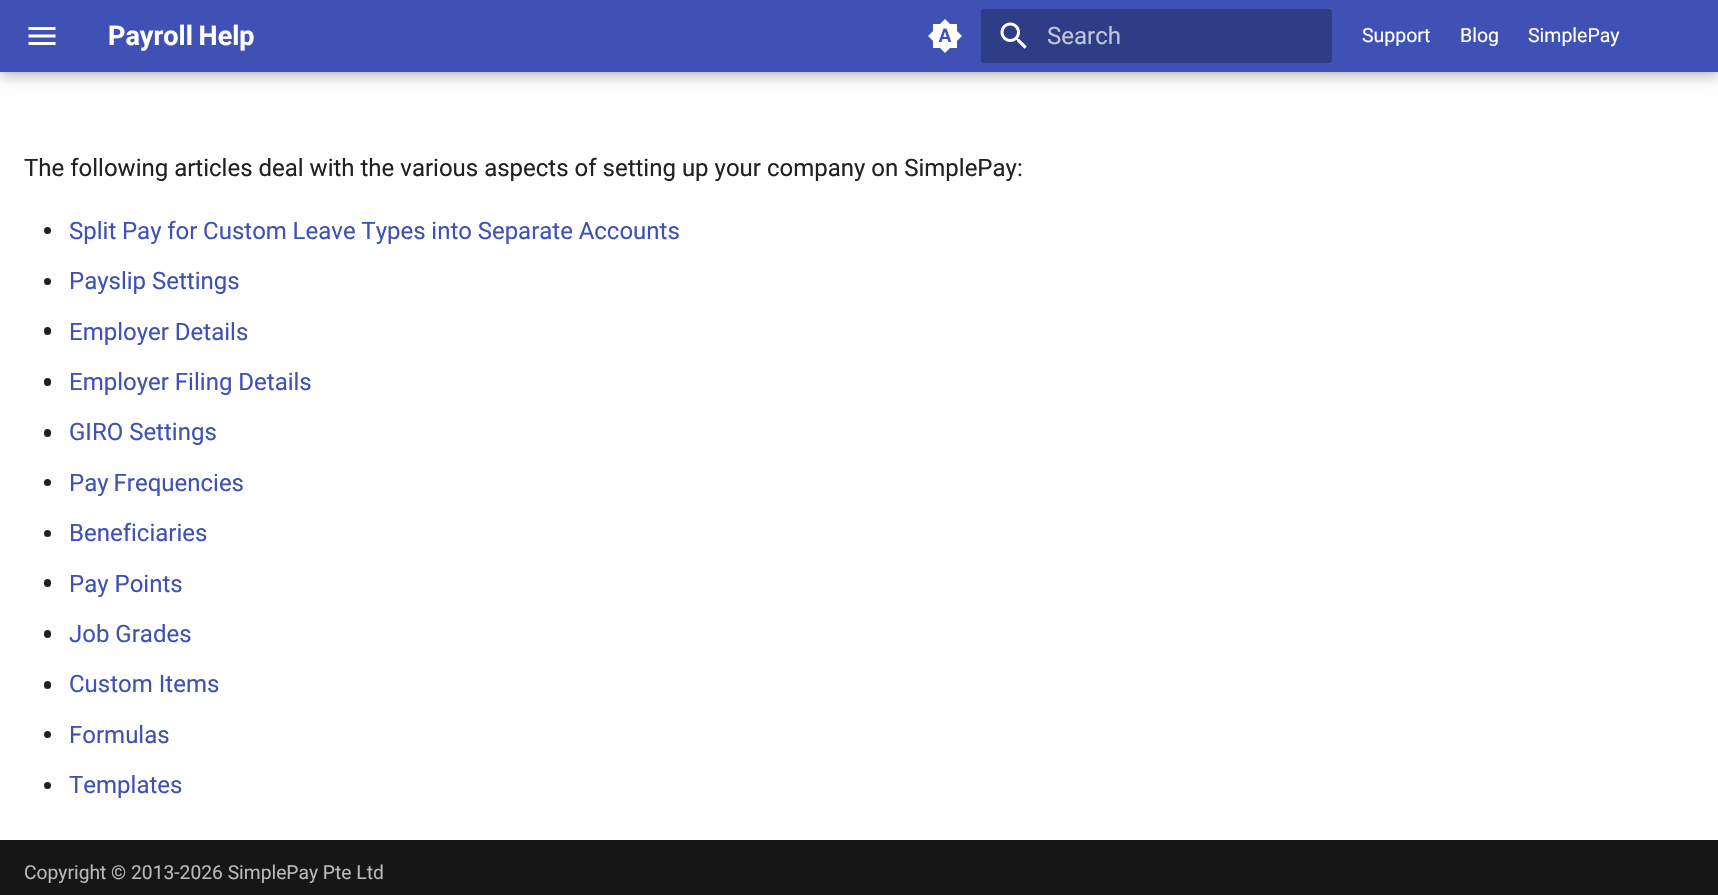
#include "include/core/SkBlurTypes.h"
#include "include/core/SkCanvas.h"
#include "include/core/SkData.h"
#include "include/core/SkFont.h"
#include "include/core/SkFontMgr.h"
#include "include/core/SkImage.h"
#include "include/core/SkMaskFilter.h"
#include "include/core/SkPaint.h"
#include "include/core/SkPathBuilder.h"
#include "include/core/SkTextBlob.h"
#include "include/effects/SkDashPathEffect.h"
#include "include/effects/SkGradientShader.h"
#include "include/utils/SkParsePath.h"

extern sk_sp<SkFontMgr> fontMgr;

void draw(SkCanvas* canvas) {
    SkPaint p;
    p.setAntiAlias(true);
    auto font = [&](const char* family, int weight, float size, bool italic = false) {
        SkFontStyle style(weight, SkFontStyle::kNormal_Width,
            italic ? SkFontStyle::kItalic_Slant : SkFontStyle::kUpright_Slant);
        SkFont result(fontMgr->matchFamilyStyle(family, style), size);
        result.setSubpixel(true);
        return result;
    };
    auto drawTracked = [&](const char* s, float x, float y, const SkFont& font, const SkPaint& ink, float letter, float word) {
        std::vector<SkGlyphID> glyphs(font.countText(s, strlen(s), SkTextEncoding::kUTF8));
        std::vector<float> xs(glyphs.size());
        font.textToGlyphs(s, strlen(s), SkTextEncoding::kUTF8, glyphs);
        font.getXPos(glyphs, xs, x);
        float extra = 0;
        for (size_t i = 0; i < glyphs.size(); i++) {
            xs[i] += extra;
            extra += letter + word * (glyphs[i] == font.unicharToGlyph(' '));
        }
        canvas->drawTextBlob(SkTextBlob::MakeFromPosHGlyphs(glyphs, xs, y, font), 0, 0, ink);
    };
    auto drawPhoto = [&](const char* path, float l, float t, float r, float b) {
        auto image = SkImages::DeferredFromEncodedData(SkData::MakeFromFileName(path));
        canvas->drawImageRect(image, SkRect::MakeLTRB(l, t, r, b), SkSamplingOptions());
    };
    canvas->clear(0xFFFFFFFF);
    p.setColor(0x33000000);
    p.setMaskFilter(SkMaskFilter::MakeBlur(kNormal_SkBlurStyle, 6));
    canvas->drawRect(SkRect::MakeLTRB(0, 6, 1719, 78), p);
    p.setMaskFilter(nullptr);
    p.setColor(0x1A000000);
    p.setMaskFilter(SkMaskFilter::MakeBlur(kNormal_SkBlurStyle, 3));
    canvas->drawRect(SkRect::MakeLTRB(0, 0, 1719, 72), p);
    p.setMaskFilter(nullptr);
    p.setColor(0xFF4051B5);
    canvas->drawRect(SkRect::MakeLTRB(0, 0, 1718, 72), p);
    drawPhoto("media/1.png", 28, 27, 56, 45);
    auto font1 = font("Roboto", 700, 27);
    p.setColor(0xFFFFFFFF);
    drawTracked("Payroll Help", 108, 45, font1, p, 0, -1);
    drawPhoto("media/2.png", 928, 19, 962, 53);
    p.setColor(0xFF2F3C86);
    canvas->drawRoundRect(SkRect::MakeLTRB(981, 9, 1332, 63), 3, 3, p);
    drawPhoto("media/3.png", 1000, 22, 1027, 49);
    auto font2 = font("Roboto", 400, 24);
    p.setColor(0xFFC1C5DB);
    canvas->drawString("Search", 1047, 44, font2, p);
    auto font3 = font("Roboto", 400, 19.5f);
    p.setColor(0xFFFFFFFF);
    {
        const struct { const char* s; float x, y; } items[] = {
            {"Support", 1362, 42},
            {"Blog", 1460, 42},
            {"SimplePay", 1528, 42},
        };
        for (auto [s, x, y] : items) {
            canvas->drawString(s, x, y, font3, p);
        }
    }
    p.setColor(0xFF212121);
    canvas->drawString("The following articles deal with the various aspects of setting up your company on SimplePay:", 24, 176, font2, p);
    canvas->drawCircle(47.5f, 230.5f, 3.5f, p);
    p.setColor(0xFF4051B5);
    drawTracked("Split Pay for Custom Leave Types into Separate Accounts", 69, 239, font2, p, 0, -0.25f);
    p.setColor(0xFF212121);
    canvas->drawCircle(47.5f, 281.5f, 3.5f, p);
    p.setColor(0xFF4051B5);
    canvas->drawString("Payslip Settings", 69, 289, font2, p);
    p.setColor(0xFF212121);
    canvas->drawRoundRect(SkRect::MakeLTRB(44, 327, 51, 335), 3.5f, 3.5f, p);
    p.setColor(0xFF4051B5);
    canvas->drawString("Employer Details", 69, 340, font2, p);
    p.setColor(0xFF212121);
    canvas->drawRoundRect(SkRect::MakeLTRB(44, 378, 51, 386), 3.5f, 3.5f, p);
    p.setColor(0xFF4051B5);
    canvas->drawString("Employer Filing Details", 69, 390, font2, p);
    p.setColor(0xFF212121);
    canvas->drawRoundRect(SkRect::MakeLTRB(44, 429, 51, 437), 3.5f, 3.5f, p);
    p.setColor(0xFF4051B5);
    canvas->drawString("GIRO Settings", 69, 440, font2, p);
    p.setColor(0xFF212121);
    canvas->drawCircle(47.5f, 482.5f, 3.5f, p);
    p.setColor(0xFF4051B5);
    drawTracked("Pay Frequencies", 69, 491, font2, p, 0, -1);
    p.setColor(0xFF212121);
    canvas->drawCircle(47.5f, 533.5f, 3.5f, p);
    p.setColor(0xFF4051B5);
    canvas->drawString("Beneficiaries", 69, 541, font2, p);
    p.setColor(0xFF212121);
    canvas->drawRoundRect(SkRect::MakeLTRB(44, 579, 51, 587), 3.5f, 3.5f, p);
    p.setColor(0xFF4051B5);
    canvas->drawString("Pay Points", 69, 592, font2, p);
    p.setColor(0xFF212121);
    canvas->drawRoundRect(SkRect::MakeLTRB(44, 630, 51, 638), 3.5f, 3.5f, p);
    p.setColor(0xFF4051B5);
    canvas->drawString("Job Grades", 69, 642, font2, p);
    p.setColor(0xFF212121);
    canvas->drawRoundRect(SkRect::MakeLTRB(44, 681, 51, 689), 3.5f, 3.5f, p);
    p.setColor(0xFF4051B5);
    canvas->drawString("Custom Items", 69, 692, font2, p);
    p.setColor(0xFF212121);
    canvas->drawCircle(47.5f, 734.5f, 3.5f, p);
    p.setColor(0xFF4051B5);
    canvas->drawString("Formulas", 69, 743, font2, p);
    p.setColor(0xFF212121);
    canvas->drawCircle(47.5f, 785.5f, 3.5f, p);
    p.setColor(0xFF4051B5);
    canvas->drawString("Templates", 69, 793, font2, p);
    p.setColor(0xFF161616);
    canvas->drawRect(SkRect::MakeLTRB(0, 840, 1718, 895), p);
    auto font4 = font("Roboto", 400, 19.25f);
    p.setColor(0xFFB9B9B9);
    canvas->drawString("Copyright © 2013-2026 SimplePay Pte Ltd", 24, 879, font4, p);
}
